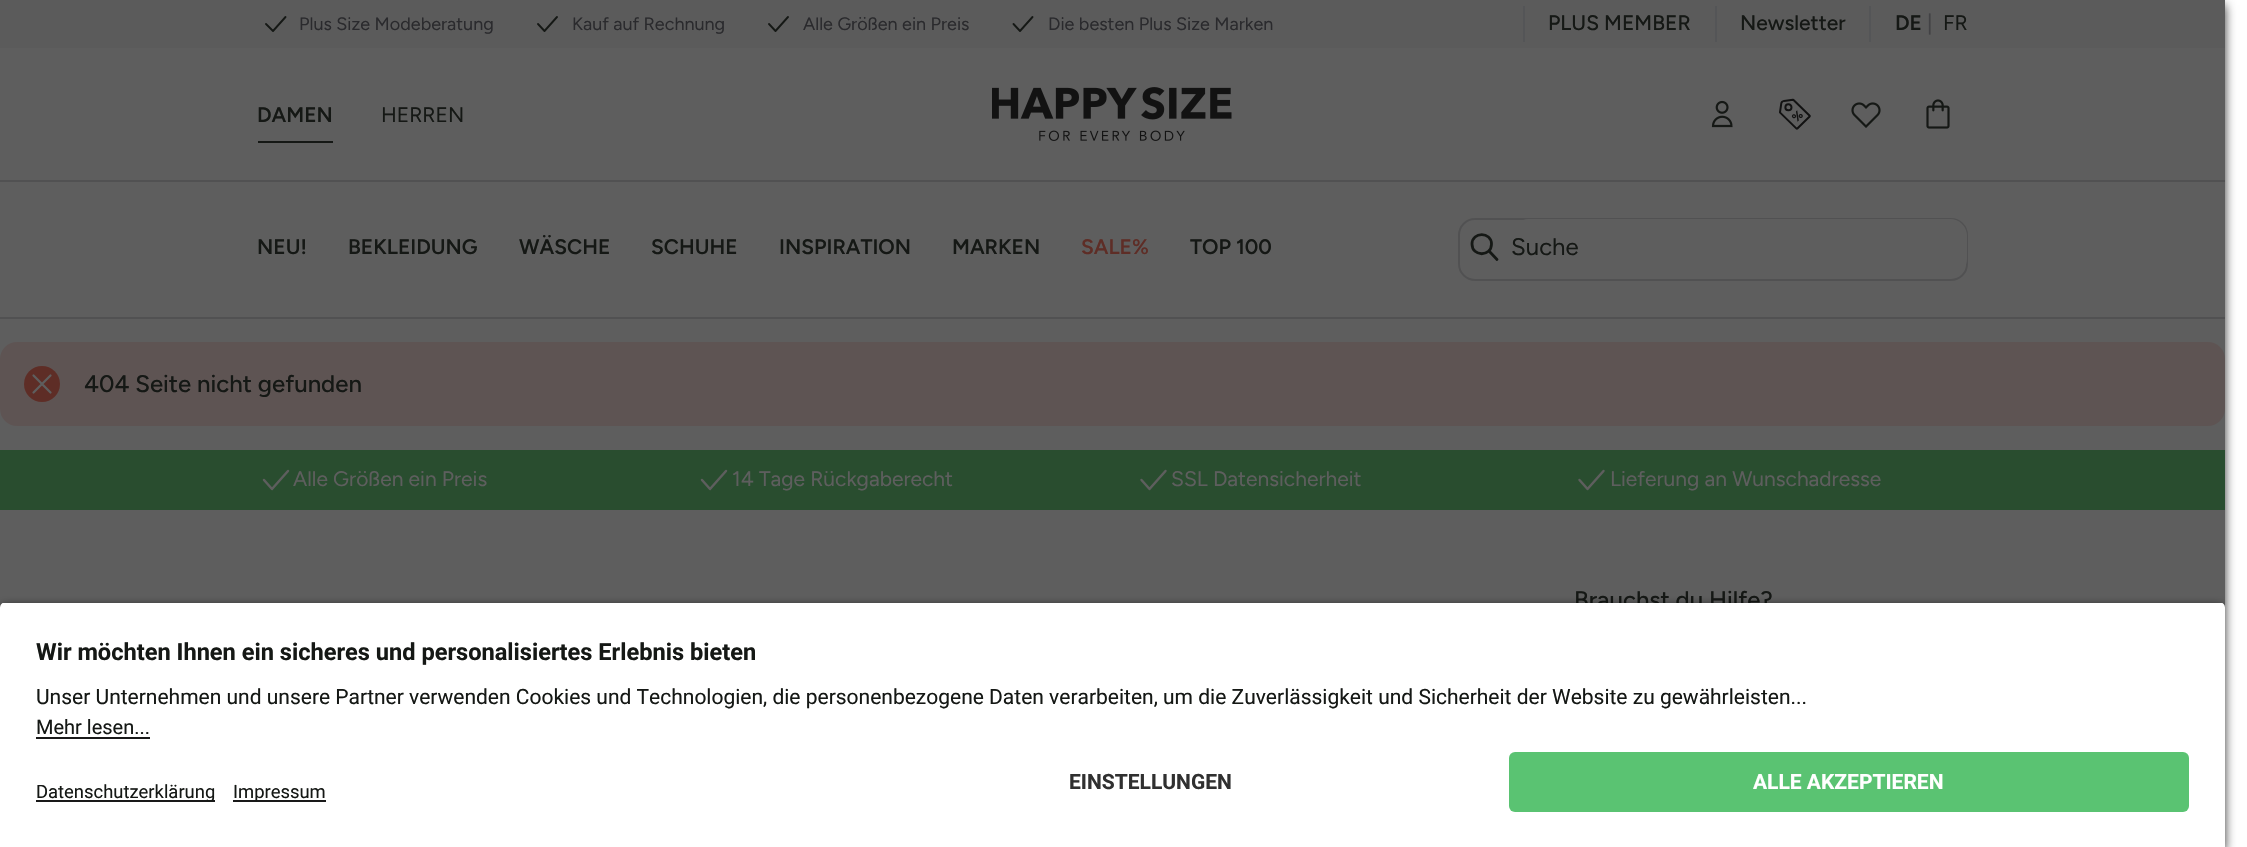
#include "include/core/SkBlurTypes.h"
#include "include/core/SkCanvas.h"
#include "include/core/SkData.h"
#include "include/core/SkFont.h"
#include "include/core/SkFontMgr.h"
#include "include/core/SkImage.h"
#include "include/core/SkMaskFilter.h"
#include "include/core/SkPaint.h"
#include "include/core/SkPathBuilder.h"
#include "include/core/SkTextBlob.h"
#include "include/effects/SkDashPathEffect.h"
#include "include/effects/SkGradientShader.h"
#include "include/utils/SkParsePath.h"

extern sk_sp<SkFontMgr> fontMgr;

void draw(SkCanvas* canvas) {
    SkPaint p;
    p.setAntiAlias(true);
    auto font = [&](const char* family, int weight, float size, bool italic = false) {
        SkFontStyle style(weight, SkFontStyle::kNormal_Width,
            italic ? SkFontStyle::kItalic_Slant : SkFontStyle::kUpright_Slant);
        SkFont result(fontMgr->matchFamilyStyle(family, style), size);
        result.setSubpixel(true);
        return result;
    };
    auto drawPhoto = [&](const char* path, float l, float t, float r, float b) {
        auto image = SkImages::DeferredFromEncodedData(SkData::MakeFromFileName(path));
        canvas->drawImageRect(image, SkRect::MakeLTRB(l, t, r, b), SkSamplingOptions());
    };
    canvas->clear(0xFFFFFFFF);
    p.setColor(0xFF5E5E5E);
    canvas->drawRect(SkRect::MakeLTRB(0, 48, 2225, 608), p);
    p.setColor(0xFF5B5B5B);
    canvas->drawRect(SkRect::MakeLTRB(0, 0, 2225, 48), p);
    p.setStyle(SkPaint::kStroke_Style);
    p.setStrokeWidth(1.9f);
    p.setStrokeCap(SkPaint::kRound_Cap);
    p.setStrokeJoin(SkPaint::kRound_Join);
    p.setColor(0xFF151815);
    canvas->drawPath(SkPathBuilder().moveTo(266, 24).lineTo(273, 31).lineTo(285.5f, 17).detach(), p);
    auto font1 = font("Figtree", 300, 18);
    p.setStyle(SkPaint::kFill_Style);
    p.setColor(0xFF2A2A2D);
    canvas->drawString("Plus Size Modeberatung", 299, 30, font1, p);
    p.setStyle(SkPaint::kStroke_Style);
    p.setColor(0xFF151815);
    canvas->drawPath(SkPathBuilder().moveTo(538, 24).lineTo(544.5f, 31).lineTo(557, 17).detach(), p);
    p.setStyle(SkPaint::kFill_Style);
    p.setColor(0xFF2A2A2D);
    canvas->drawString("Kauf auf Rechnung", 572, 30, font1, p);
    p.setStyle(SkPaint::kStroke_Style);
    p.setColor(0xFF151815);
    canvas->drawPath(SkPathBuilder().moveTo(769, 24).lineTo(775.5f, 31).lineTo(788, 17).detach(), p);
    p.setStyle(SkPaint::kFill_Style);
    p.setColor(0xFF2A2A2D);
    canvas->drawString("Alle Größen ein Preis", 803, 30, font1, p);
    p.setStyle(SkPaint::kStroke_Style);
    p.setColor(0xFF151815);
    canvas->drawPath(SkPathBuilder().moveTo(1013.5f, 24).lineTo(1020, 31).lineTo(1032.5f, 17).detach(), p);
    p.setStyle(SkPaint::kFill_Style);
    p.setColor(0xFF2A2A2D);
    canvas->drawString("Die besten Plus Size Marken", 1048, 30, font1, p);
    p.setColor(0xFF545557);
    canvas->drawRect(SkRect::MakeLTRB(1523, 6, 1525, 42), p);
    auto font2 = font("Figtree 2", 300, 21);
    p.setColor(0xFF151815);
    canvas->drawString("PLUS MEMBER", 1548, 30, font2, p);
    p.setColor(0xFF545557);
    canvas->drawRect(SkRect::MakeLTRB(1715, 6, 1717, 42), p);
    p.setColor(0xFF151815);
    canvas->drawString("Newsletter", 1740, 30, font2, p);
    p.setColor(0xFF545557);
    canvas->drawRect(SkRect::MakeLTRB(1869, 6, 1871, 42), p);
    auto font3 = font("Figtree", 600, 21);
    p.setColor(0xFF151815);
    canvas->drawString("DE", 1895, 30, font3, p);
    p.setColor(0xFF424245);
    canvas->drawString("|", 1927, 30, font2, p);
    auto font4 = font("Figtree", 300, 21);
    p.setColor(0xFF151815);
    canvas->drawString("FR", 1943, 30, font4, p);
    canvas->drawRect(SkRect::MakeLTRB(258, 141, 333, 143), p);
    canvas->drawString("DAMEN", 257, 122, font3, p);
    canvas->drawString("HERREN", 381, 122, font4, p);
    drawPhoto("media/1.png", 992, 87, 1232, 141);
    drawPhoto("media/2.png", 1711, 100, 1733, 128);
    drawPhoto("media/3.png", 1779, 98, 1811, 130);
    drawPhoto("media/4.png", 1851, 102, 1881, 128);
    drawPhoto("media/5.png", 1926, 99, 1950, 129);
    p.setColor(0xFF515152);
    canvas->drawRect(SkRect::MakeLTRB(0, 180, 2225, 182), p);
    canvas->drawRect(SkRect::MakeLTRB(0, 317, 2225, 319), p);
    p.setColor(0xFF151815);
    {
        const struct { const char* s; float x, y; } items[] = {
            {"NEU!", 257, 254},
            {"BEKLEIDUNG", 348, 254},
            {"WÄSCHE", 519, 254},
            {"SCHUHE", 651, 254},
            {"INSPIRATION", 779, 254},
            {"MARKEN", 952, 254},
        };
        for (auto [s, x, y] : items) {
            canvas->drawString(s, x, y, font3, p);
        }
    }
    p.setColor(0xFF5E2D26);
    canvas->drawString("SALE%", 1081, 254, font3, p);
    p.setColor(0xFF151815);
    canvas->drawString("TOP 100", 1190, 254, font3, p);
    p.setStyle(SkPaint::kStroke_Style);
    p.setStrokeWidth(2);
    p.setStrokeCap(SkPaint::kButt_Cap);
    p.setStrokeJoin(SkPaint::kMiter_Join);
    p.setColor(0xFF515152);
    canvas->drawRoundRect(SkRect::MakeLTRB(1459, 219, 1967, 280), 16, 16, p);
    p.setStrokeWidth(2.8f);
    p.setStrokeCap(SkPaint::kRound_Cap);
    p.setStrokeJoin(SkPaint::kRound_Join);
    p.setColor(0xFF151815);
    canvas->drawPath(SkPathBuilder().moveTo(1497, 259.5f).lineTo(1489, 251).moveTo(1491.5f, 244).cubicTo(1491.5f, 257, 1472, 257, 1472, 244).cubicTo(1472, 231.5f, 1491.5f, 231.5f, 1491.5f, 244).detach(), p);
    p.setStyle(SkPaint::kFill_Style);
    p.setColor(0xFF5E5E5E);
    canvas->drawRoundRect(SkRect::MakeLTRB(1512, 219, 1967, 276), 17, 17, p);
    auto font5 = font("Figtree", 300, 24);
    p.setColor(0xFF151815);
    canvas->drawString("Suche", 1511, 255, font5, p);
    p.setColor(0xFF5E5453);
    canvas->drawRoundRect(SkRect::MakeLTRB(0, 342, 2225, 426), 17, 17, p);
    p.setColor(0xFF5E2D26);
    canvas->drawCircle(42, 384, 18, p);
    p.setStyle(SkPaint::kStroke_Style);
    p.setStrokeWidth(2.2f);
    p.setColor(0xFF5E5E5E);
    canvas->drawPath(SkPathBuilder().moveTo(50.5f, 375.5f).lineTo(33.5f, 392.5f).moveTo(50.5f, 392.5f).lineTo(33.5f, 375.5f).detach(), p);
    auto font6 = font("Figtree 2", 300, 24);
    p.setStyle(SkPaint::kFill_Style);
    p.setColor(0xFF151815);
    canvas->drawString("404 Seite nicht gefunden", 84, 392, font6, p);
    p.setColor(0xFF294D2F);
    canvas->drawRect(SkRect::MakeLTRB(0, 450, 2225, 510), p);
    p.setStyle(SkPaint::kStroke_Style);
    p.setStrokeWidth(2.4f);
    p.setColor(0xFF5E5E5E);
    canvas->drawPath(SkPathBuilder().moveTo(264, 480).lineTo(272, 489).lineTo(288, 471).detach(), p);
    p.setStyle(SkPaint::kFill_Style);
    canvas->drawString("Alle Größen ein Preis", 293, 486, font4, p);
    p.setStyle(SkPaint::kStroke_Style);
    canvas->drawPath(SkPathBuilder().moveTo(702, 480).lineTo(710, 489).lineTo(726, 471).detach(), p);
    p.setStyle(SkPaint::kFill_Style);
    canvas->drawString("14 Tage Rückgaberecht", 732, 486, font4, p);
    p.setStyle(SkPaint::kStroke_Style);
    canvas->drawPath(SkPathBuilder().moveTo(1141.5f, 480).lineTo(1149.5f, 489).lineTo(1165.5f, 471).detach(), p);
    p.setStyle(SkPaint::kFill_Style);
    canvas->drawString("SSL Datensicherheit", 1171, 486, font4, p);
    p.setStyle(SkPaint::kStroke_Style);
    canvas->drawPath(SkPathBuilder().moveTo(1579.5f, 480).lineTo(1587.5f, 489).lineTo(1603.5f, 471).detach(), p);
    p.setStyle(SkPaint::kFill_Style);
    canvas->drawString("Lieferung an Wunschadresse", 1610, 486, font4, p);
    p.setColor(0xFF151815);
    canvas->drawString("Brauchst du Hilfe?", 1574, 608, font6, p);
    canvas->save();
    canvas->clipPath(SkPathBuilder(SkPathFillType::kEvenOdd).moveTo(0, 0).lineTo(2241, 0).lineTo(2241, 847).lineTo(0, 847).close().moveTo(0, 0).lineTo(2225, 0).lineTo(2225, 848).lineTo(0, 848).close().detach(), true);
    p.setColor(0xCC000000);
    p.setMaskFilter(SkMaskFilter::MakeBlur(kNormal_SkBlurStyle, 5));
    canvas->drawRect(SkRect::MakeLTRB(0, 5, 2225, 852), p);
    p.setMaskFilter(nullptr);
    canvas->restore();
    canvas->save();
    canvas->clipRect(SkRect::MakeLTRB(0, 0, 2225, 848));
    p.setMaskFilter(SkMaskFilter::MakeBlur(kNormal_SkBlurStyle, 5));
    canvas->drawRoundRect(SkRect::MakeLTRB(0, 606, 2225, 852), 6, 6, p);
    p.setMaskFilter(nullptr);
    canvas->restore();
    canvas->save();
    canvas->clipPath(SkPathBuilder().moveTo(6, 602).lineTo(2219, 602).cubicTo(2222.5f, 602, 2225, 604.5f, 2225, 608).lineTo(2225, 740).lineTo(0, 740).lineTo(0, 608).cubicTo(0, 604.5f, 2.5f, 602, 6, 602).close().detach(), true);
    p.setColor(0xFFFFFFFF);
    canvas->drawRect(SkRect::MakeLTRB(0, 603, 2225, 740), p);
    canvas->restore();
    auto font7 = font("Roboto", 700, 23.6f);
    p.setColor(0xFF151815);
    canvas->drawString("Wir möchten Ihnen ein sicheres und personalisiertes Erlebnis bieten", 36, 660, font7, p);
    auto font8 = font("Roboto", 400, 21);
    canvas->drawString("Unser Unternehmen und unsere Partner verwenden Cookies und Technologien, die personenbezogene Daten verarbeiten, um die Zuverlässigkeit und Sicherheit der Website zu gewährleisten...", 36, 704, font8, p);
    auto font9 = font("Roboto", 400, 20);
    canvas->drawString("Mehr lesen...", 36, 734, font9, p);
    p.setColor(0xFF191919);
    canvas->drawRect(SkRect::MakeLTRB(36, 737, 150, 739), p);
    p.setColor(0xFFFFFFFF);
    canvas->drawRect(SkRect::MakeLTRB(0, 740, 2225, 847), p);
    auto font10 = font("Roboto", 700, 21);
    p.setColor(0xFF303030);
    canvas->drawString("EINSTELLUNGEN", 1069, 789, font10, p);
    p.setColor(0xFF5AC372);
    canvas->drawRoundRect(SkRect::MakeLTRB(1509, 752, 2189, 812), 6, 6, p);
    p.setColor(0xFFFFFFFF);
    canvas->drawString("ALLE AKZEPTIEREN", 1753, 789, font10, p);
    p.setColor(0xFF191919);
    canvas->drawRect(SkRect::MakeLTRB(36, 800, 215, 802), p);
    auto font11 = font("Roboto", 400, 18.4f);
    p.setColor(0xFF151815);
    canvas->drawString("Datenschutzerklärung", 36, 798, font11, p);
    p.setColor(0xFF191919);
    canvas->drawRect(SkRect::MakeLTRB(233, 800, 326, 802), p);
    p.setColor(0xFF151815);
    canvas->drawString("Impressum", 233, 798, font11, p);
}
